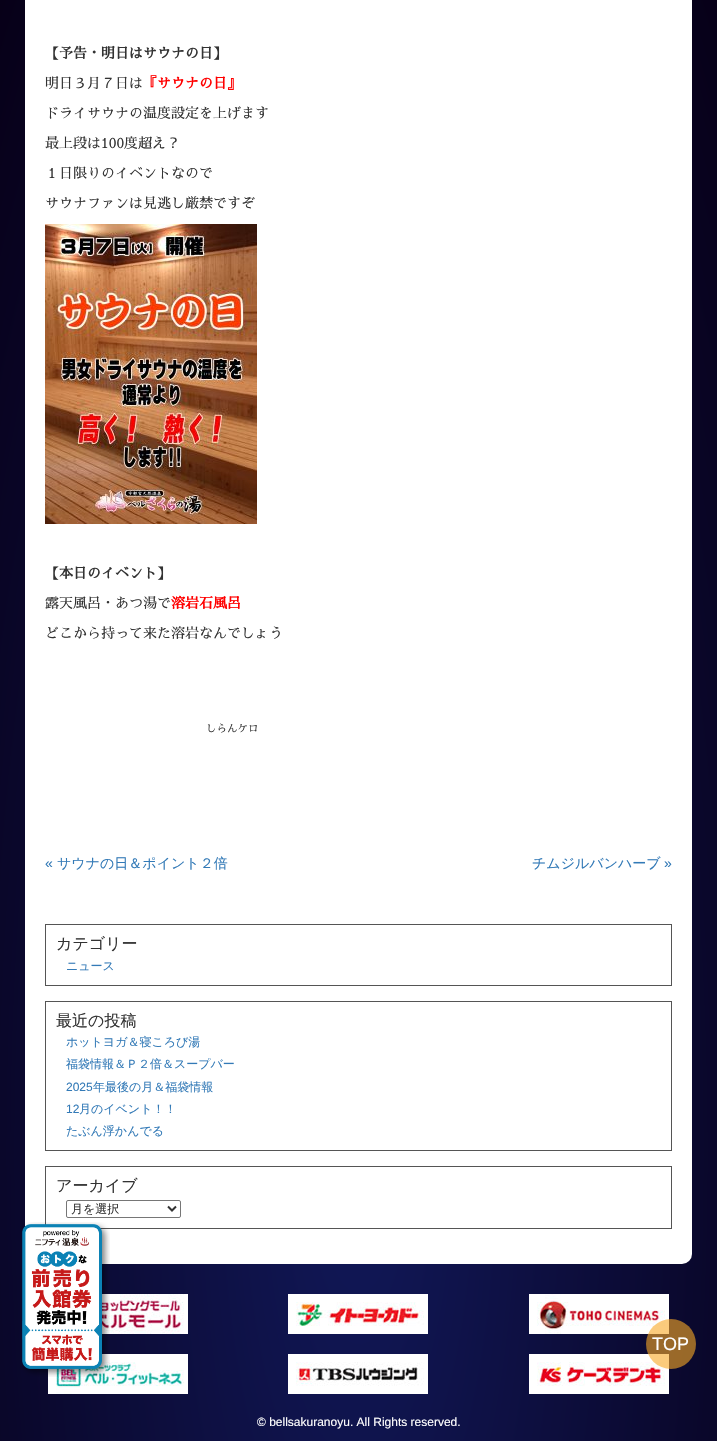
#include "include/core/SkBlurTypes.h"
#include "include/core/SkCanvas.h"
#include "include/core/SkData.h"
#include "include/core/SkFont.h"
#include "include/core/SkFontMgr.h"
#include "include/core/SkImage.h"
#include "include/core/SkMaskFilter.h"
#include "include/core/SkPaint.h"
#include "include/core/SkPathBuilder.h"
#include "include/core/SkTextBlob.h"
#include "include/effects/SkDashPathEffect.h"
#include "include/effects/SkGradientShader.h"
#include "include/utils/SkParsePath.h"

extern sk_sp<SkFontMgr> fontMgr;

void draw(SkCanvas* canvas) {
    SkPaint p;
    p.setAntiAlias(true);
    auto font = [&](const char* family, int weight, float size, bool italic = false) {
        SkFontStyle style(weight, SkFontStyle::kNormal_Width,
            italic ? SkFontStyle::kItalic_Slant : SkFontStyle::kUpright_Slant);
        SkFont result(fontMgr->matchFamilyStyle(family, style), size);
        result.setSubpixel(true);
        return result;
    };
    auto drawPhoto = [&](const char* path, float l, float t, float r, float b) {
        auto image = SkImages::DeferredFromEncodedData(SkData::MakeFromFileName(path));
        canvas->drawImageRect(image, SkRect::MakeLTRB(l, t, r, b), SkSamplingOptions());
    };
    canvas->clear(0xFFFFFFFF);
    {
        const SkColor colors[] = {0xFF111858, 0xFF070018};
        const float stops[] = {0, 1};
        SkMatrix m = SkMatrix::Translate(359, 1153).preScale(507, 1630);
        p.setShader(SkGradientShader::MakeRadial({0, 0}, 1, colors, stops, 2, SkTileMode::kClamp, 0, &m));
        p.setAlpha(255);
    }
    canvas->drawRect(SkRect::MakeLTRB(0, 0, 717, 1441), p);
    p.setShader(nullptr);
    p.setColor(0xFFFFFFFF);
    canvas->drawRoundRect(SkRect::MakeLTRB(25, -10, 692, 1264), 10, 10, p);
    auto font1 = font("Sawarabi Mincho", 700, 14);
    p.setColor(0xFF333333);
    canvas->drawString("【予告・明日はサウナの日】", 45, 58, font1, p);
    auto font2 = font("Sawarabi Mincho", 400, 14);
    canvas->drawString("明日３月７日は", 45, 88, font2, p);
    p.setColor(0xFFFF0000);
    canvas->drawString("『サウナの日』", 143, 88, font1, p);
    p.setColor(0xFF333333);
    {
        const struct { const char* s; float x, y; } items[] = {
            {"ドライサウナの温度設定を上げます", 45, 118},
            {"最上段は100度超え？", 45, 148},
            {"１日限りのイベントなので", 45, 178},
            {"サウナファンは見逃し厳禁ですぞ", 45, 208},
        };
        for (auto [s, x, y] : items) {
            canvas->drawString(s, x, y, font2, p);
        }
    }
    drawPhoto("media/1.png", 45, 224, 257, 524);
    canvas->drawString("【本日のイベント】", 45, 578, font1, p);
    canvas->drawString("露天風呂・あつ湯で", 45, 608, font2, p);
    p.setColor(0xFFFF0000);
    canvas->drawString("溶岩石風呂", 171, 608, font1, p);
    p.setColor(0xFF333333);
    canvas->drawString("どこから持って来た溶岩なんでしょう", 45, 638, font2, p);
    auto font3 = font("Sawarabi Mincho", 400, 10.5f);
    canvas->drawString("しらんケロ", 206, 732, font3, p);
    auto font4 = font("Liberation Sans", 400, 14);
    p.setColor(0xFF337AB7);
    canvas->drawString("«", 45, 868, font4, p);
    auto font5 = font("WenQuanYi Zen Hei", 500, 14);
    canvas->drawString("サウナの日＆ポイント２倍", 57, 868, font5, p);
    canvas->drawString("チムジルバンハーブ", 532, 868, font5, p);
    canvas->drawString("»", 664, 868, font4, p);
    p.setStyle(SkPaint::kStroke_Style);
    p.setStrokeWidth(1);
    p.setColor(0xFF555555);
    canvas->drawRect(SkRect::MakeLTRB(45.5f, 924.5f, 671.5f, 985.5f), p);
    auto font6 = font("WenQuanYi Zen Hei", 500, 16);
    p.setStyle(SkPaint::kFill_Style);
    p.setColor(0xFF333333);
    canvas->drawString("カテゴリー", 56, 949, font6, p);
    auto font7 = font("WenQuanYi Zen Hei", 500, 12);
    p.setColor(0xFF337AB7);
    canvas->drawString("ニュース", 66, 970, font7, p);
    p.setStyle(SkPaint::kStroke_Style);
    p.setColor(0xFF555555);
    canvas->drawRect(SkRect::MakeLTRB(45.5f, 1001.5f, 671.5f, 1150.5f), p);
    p.setStyle(SkPaint::kFill_Style);
    p.setColor(0xFF333333);
    canvas->drawString("最近の投稿", 56, 1026, font6, p);
    p.setColor(0xFF337AB7);
    canvas->drawString("ホットヨガ＆寝ころび湯", 66, 1046, font7, p);
    canvas->drawString("福袋情報＆Ｐ２倍＆スープバー", 66, 1068, font7, p);
    auto font8 = font("Liberation Sans", 400, 12);
    canvas->drawString("2025", 66, 1091, font8, p);
    canvas->drawString("年最後の月＆福袋情報", 93, 1091, font7, p);
    canvas->drawString("12", 66, 1113, font8, p);
    canvas->drawString("月のイベント！！", 79, 1113, font7, p);
    canvas->drawString("たぶん浮かんでる", 66, 1135, font7, p);
    p.setStyle(SkPaint::kStroke_Style);
    p.setColor(0xFF555555);
    canvas->drawRect(SkRect::MakeLTRB(45.5f, 1166.5f, 671.5f, 1228.5f), p);
    p.setStyle(SkPaint::kFill_Style);
    p.setColor(0xFF333333);
    canvas->drawString("アーカイブ", 56, 1191, font6, p);
    p.setStyle(SkPaint::kStroke_Style);
    p.setColor(0xFF767676);
    canvas->drawRoundRect(SkRect::MakeLTRB(66.5f, 1200.5f, 180.5f, 1217.5f), 1.5f, 1.5f, p);
    p.setStrokeWidth(2);
    p.setColor(0xFF333333);
    canvas->drawPath(SkPathBuilder().moveTo(168, 1206.5f).lineTo(172, 1210.5f).lineTo(176, 1206.5f).detach(), p);
    p.setStyle(SkPaint::kFill_Style);
    canvas->drawString("月を選択", 71, 1213, font7, p);
    drawPhoto("media/3.png", 102, 1294, 188, 1334);
    drawPhoto("media/6.png", 48, 1354, 188, 1394);
    drawPhoto("media/2.png", 22, 1222, 110, 1377);
    drawPhoto("media/5.png", 529, 1294, 669, 1334);
    drawPhoto("media/8.png", 529, 1354, 669, 1394);
    p.setColor(0x99F9A825);
    canvas->drawCircle(671, 1344, 25, p);
    auto font9 = font("Liberation Sans", 400, 18);
    p.setColor(0xFFFFFFFF);
    canvas->drawString("TOP", 652, 1350, font9, p);
    drawPhoto("media/4.png", 288, 1294, 428, 1334);
    drawPhoto("media/7.png", 288, 1354, 428, 1394);
    canvas->drawString("© bellsakuranoyu. All Rights reserved.", 257, 1426, font8, p);
}
